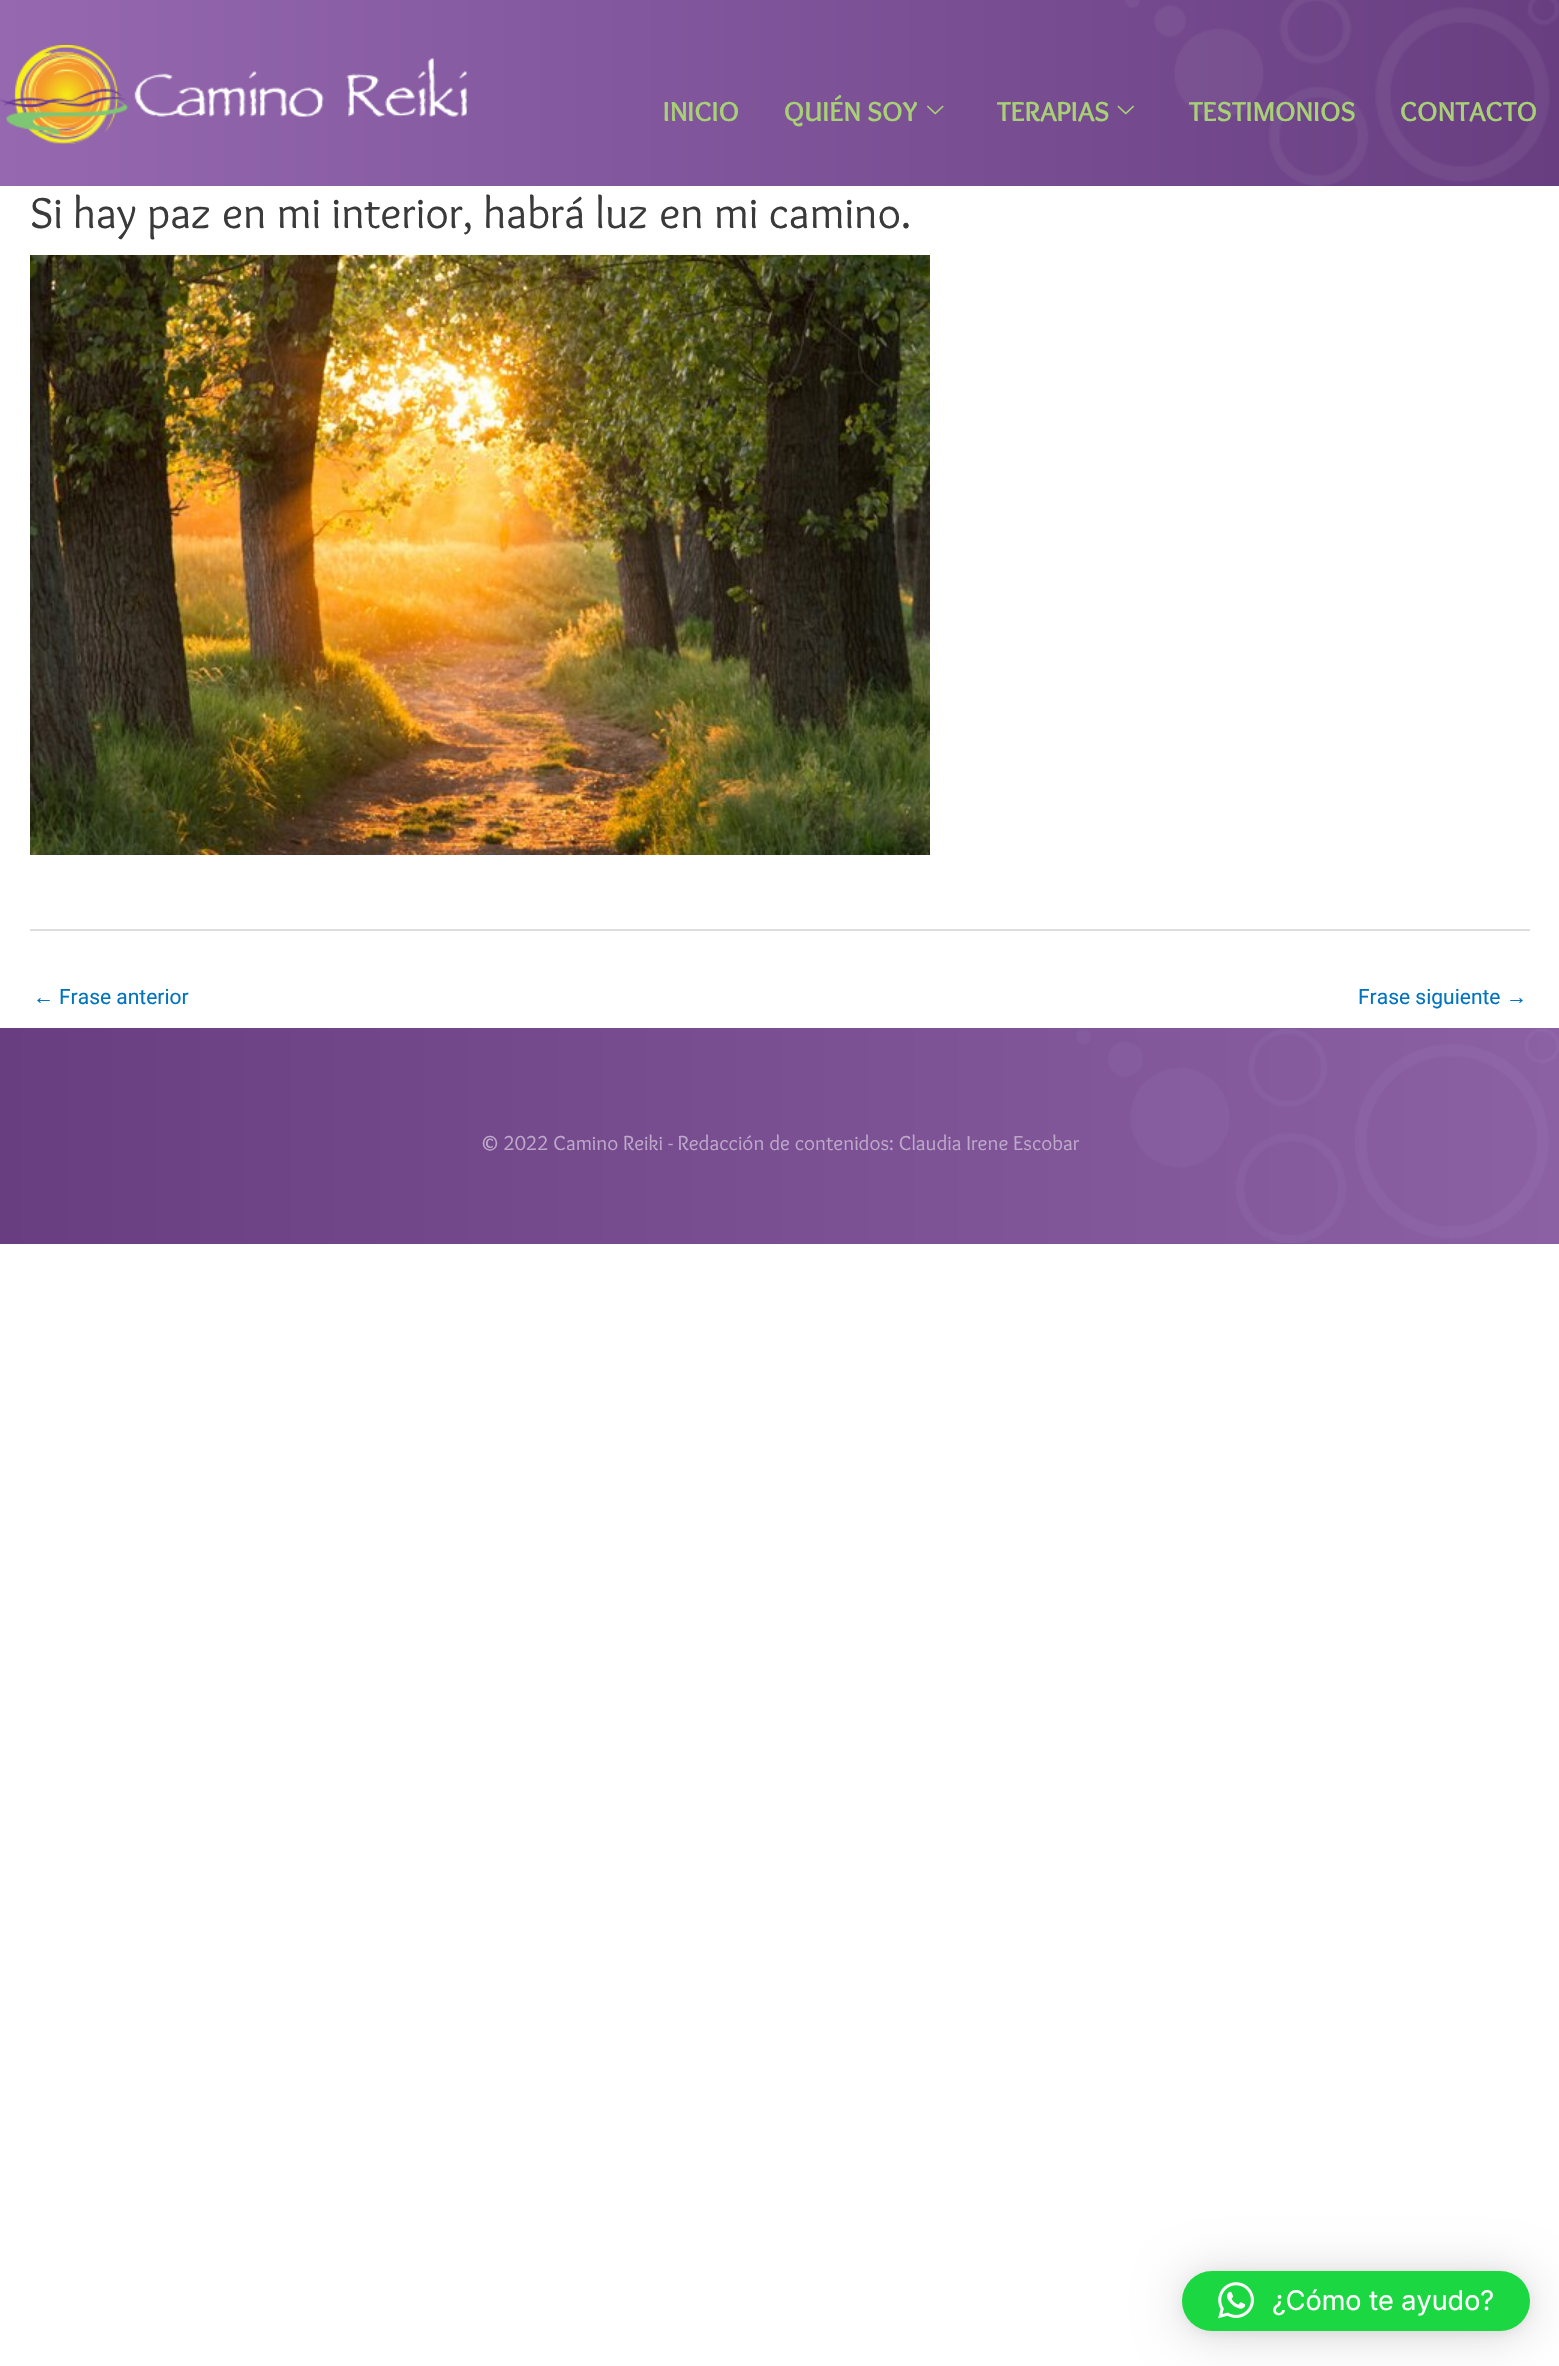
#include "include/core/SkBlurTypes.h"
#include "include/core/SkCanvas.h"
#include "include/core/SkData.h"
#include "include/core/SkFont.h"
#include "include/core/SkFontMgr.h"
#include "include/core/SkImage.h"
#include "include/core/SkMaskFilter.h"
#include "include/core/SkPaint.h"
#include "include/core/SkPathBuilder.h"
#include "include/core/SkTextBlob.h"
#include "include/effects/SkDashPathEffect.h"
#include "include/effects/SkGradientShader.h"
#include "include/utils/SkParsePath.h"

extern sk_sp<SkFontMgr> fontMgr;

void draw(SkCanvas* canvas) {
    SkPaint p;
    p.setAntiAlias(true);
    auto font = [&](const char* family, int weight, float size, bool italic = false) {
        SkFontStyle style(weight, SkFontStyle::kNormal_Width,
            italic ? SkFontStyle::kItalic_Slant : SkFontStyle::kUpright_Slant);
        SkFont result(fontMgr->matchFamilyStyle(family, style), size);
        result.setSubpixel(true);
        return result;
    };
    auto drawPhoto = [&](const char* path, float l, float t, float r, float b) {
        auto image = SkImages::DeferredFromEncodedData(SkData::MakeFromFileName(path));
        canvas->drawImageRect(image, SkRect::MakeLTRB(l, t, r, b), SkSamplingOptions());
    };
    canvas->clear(0xFFFFFFFF);
    {
        const SkColor colors[] = {0xFF683E81, 0xFF9568B0};
        const float stops[] = {0, 1};
        const SkPoint ends[] = {{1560, 93}, {0, 93}};
        p.setShader(SkGradientShader::MakeLinear(ends, colors, stops, 2, SkTileMode::kClamp));
        p.setAlpha(255);
    }
    canvas->drawRect(SkRect::MakeLTRB(0, 0, 1559, 186), p);
    drawPhoto("media/1.png", 1125, 0, 1559, 186);
    drawPhoto("media/2.png", 0, 45, 467, 144);
    auto font1 = font("Overlock", 700, 28.5f);
    p.setShader(nullptr);
    p.setColor(0xFFA8D175);
    canvas->drawString("INICIO", 663, 121, font1, p);
    canvas->drawString("QUIÉN SOY", 784, 121, font1, p);
    drawPhoto("media/3.png", 927, 105, 944, 115);
    canvas->drawString("TERAPIAS", 997, 121, font1, p);
    drawPhoto("media/4.png", 1117, 105, 1134, 115);
    canvas->drawString("TESTIMONIOS", 1189, 121, font1, p);
    canvas->drawString("CONTACTO", 1400, 121, font1, p);
    auto font2 = font("Overlock", 400, 45);
    p.setColor(0xFF3A3A3A);
    canvas->drawString("Si hay paz en mi interior, habrá luz en mi camino.", 30, 228, font2, p);
    drawPhoto("media/5.png", 30, 255, 930, 855);
    p.setColor(0xFFDDDDDD);
    canvas->drawRect(SkRect::MakeLTRB(30, 929, 1530, 931), p);
    auto font3 = font("Liberation Sans", 400, 21);
    p.setColor(0xFF0274BE);
    canvas->drawString("←", 33, 1004, font3, p);
    auto font4 = font("Roboto", 400, 21);
    canvas->drawString("Frase anterior", 59, 1004, font4, p);
    canvas->drawString("Frase siguiente", 1358, 1004, font4, p);
    canvas->drawString("→", 1506, 1004, font3, p);
    {
        const SkColor colors[] = {0xFF683E81, 0xFF8B61A4};
        const float stops[] = {0, 1};
        const SkPoint ends[] = {{0, 1136}, {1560, 1136}};
        p.setShader(SkGradientShader::MakeLinear(ends, colors, stops, 2, SkTileMode::kClamp));
        p.setAlpha(255);
    }
    canvas->drawRect(SkRect::MakeLTRB(0, 1028, 1559, 1244), p);
    drawPhoto("media/6.png", 1076, 1029, 1559, 1243);
    auto font5 = font("Overlock", 400, 21);
    p.setShader(nullptr);
    p.setColor(0xFFBEA9CA);
    canvas->drawString("© 2022 Camino Reiki - Redacción de contenidos: Claudia Irene Escobar", 480, 1150, font5, p);
    p.setColor(0x29000000);
    p.setMaskFilter(SkMaskFilter::MakeBlur(kNormal_SkBlurStyle, 24));
    canvas->drawRoundRect(SkRect::MakeLTRB(1182, 2274, 1530, 2334), 30, 30, p);
    p.setMaskFilter(nullptr);
    p.setColor(0x0F000000);
    p.setMaskFilter(SkMaskFilter::MakeBlur(kNormal_SkBlurStyle, 4.5f));
    canvas->drawRoundRect(SkRect::MakeLTRB(1182, 2273, 1530, 2333), 30, 30, p);
    p.setMaskFilter(nullptr);
    p.setColor(0xFF1BD741);
    canvas->drawRoundRect(SkRect::MakeLTRB(1182, 2271, 1530, 2331), 30, 30, p);
    drawPhoto("media/7.png", 1218, 2282, 1254, 2319);
    auto font6 = font("Inter", 400, 27);
    p.setColor(0xFFFFFFFF);
    canvas->drawString("¿Cómo te ayudo?", 1272, 2310, font6, p);
}
